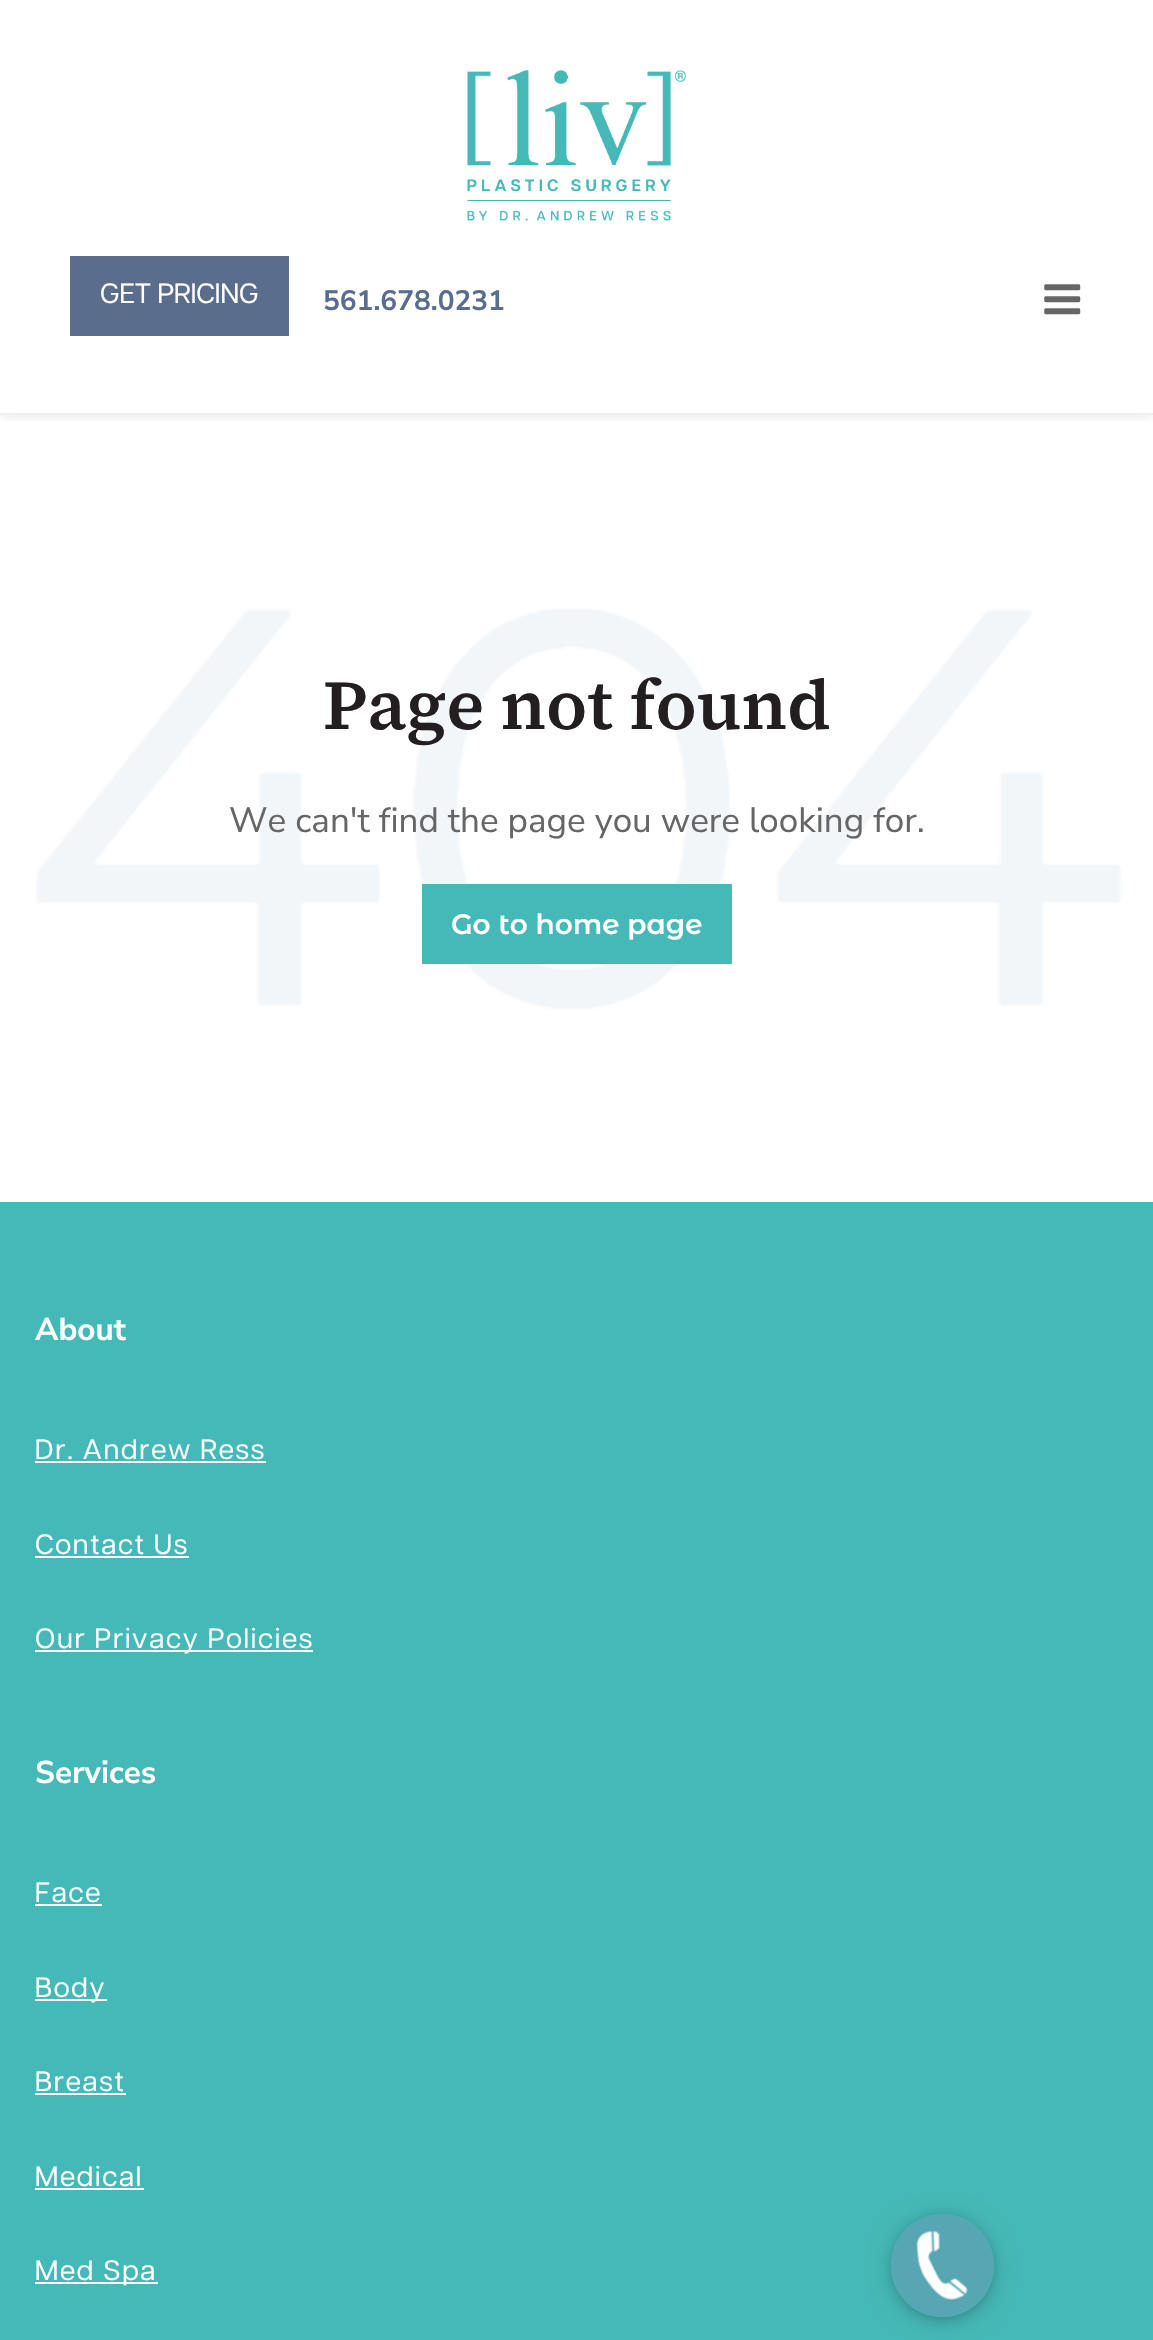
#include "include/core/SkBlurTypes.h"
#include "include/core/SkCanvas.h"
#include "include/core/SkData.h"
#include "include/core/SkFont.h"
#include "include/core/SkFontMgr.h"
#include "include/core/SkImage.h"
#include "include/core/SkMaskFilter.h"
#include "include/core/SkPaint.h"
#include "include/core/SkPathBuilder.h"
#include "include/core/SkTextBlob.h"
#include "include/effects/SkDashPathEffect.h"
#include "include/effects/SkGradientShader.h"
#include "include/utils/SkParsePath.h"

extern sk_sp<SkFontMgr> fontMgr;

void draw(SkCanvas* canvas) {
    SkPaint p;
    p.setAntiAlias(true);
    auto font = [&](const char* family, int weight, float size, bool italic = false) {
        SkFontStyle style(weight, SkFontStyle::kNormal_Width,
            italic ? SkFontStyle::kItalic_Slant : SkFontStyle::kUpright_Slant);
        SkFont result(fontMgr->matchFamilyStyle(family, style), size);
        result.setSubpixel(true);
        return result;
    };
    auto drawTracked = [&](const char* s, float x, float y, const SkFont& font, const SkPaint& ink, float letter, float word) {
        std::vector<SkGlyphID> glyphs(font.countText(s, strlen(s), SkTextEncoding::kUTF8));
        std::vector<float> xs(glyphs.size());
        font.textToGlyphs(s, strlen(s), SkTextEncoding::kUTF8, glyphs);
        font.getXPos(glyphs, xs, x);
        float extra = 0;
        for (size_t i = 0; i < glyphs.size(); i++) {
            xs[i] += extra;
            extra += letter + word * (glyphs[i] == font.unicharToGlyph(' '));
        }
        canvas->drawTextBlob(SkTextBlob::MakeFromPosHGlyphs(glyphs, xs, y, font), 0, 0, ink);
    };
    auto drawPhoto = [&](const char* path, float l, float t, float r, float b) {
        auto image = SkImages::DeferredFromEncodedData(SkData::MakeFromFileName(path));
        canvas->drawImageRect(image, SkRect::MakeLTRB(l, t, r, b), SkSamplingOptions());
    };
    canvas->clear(0xFFFFFFFF);
    canvas->save();
    canvas->clipRect(SkRect::MakeLTRB(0, 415, 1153, 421));
    p.setColor(0x1A000000);
    p.setMaskFilter(SkMaskFilter::MakeBlur(kNormal_SkBlurStyle, 7));
    canvas->drawRect(SkRect::MakeLTRB(0, 0, 1153, 415), p);
    p.setMaskFilter(nullptr);
    canvas->restore();
    p.setColor(0xFFEEEEEE);
    canvas->drawRect(SkRect::MakeLTRB(0, 413, 1153, 415), p);
    drawPhoto("media/1.png", 467, 70, 686, 221);
    p.setColor(0xFF5A6D8D);
    canvas->drawRect(SkRect::MakeLTRB(70, 256, 289, 336), p);
    auto font1 = font("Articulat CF", 400, 28);
    p.setColor(0xFFFFFFFF);
    canvas->drawString("GET PRICING", 100, 303, font1, p);
    auto font2 = font("Nunito Sans", 700, 28);
    p.setColor(0xFF5A6D8D);
    canvas->drawString("561.678.0231", 323, 310, font2, p);
    drawPhoto("media/2.png", 1044, 284, 1081, 315);
    drawPhoto("media/3.png", 36, 608, 1122, 1010);
    auto font3 = font("Source Serif 4", 600, 70);
    p.setColor(0xFF231F20);
    canvas->drawString("Page not found", 323, 729, font3, p);
    auto font4 = font("Nunito Sans", 400, 35);
    p.setColor(0xFF666666);
    canvas->drawString("We can't find the page you were looking for.", 229, 832, font4, p);
    p.setColor(0xFF45B9B7);
    canvas->drawRect(SkRect::MakeLTRB(422, 884, 732, 964), p);
    auto font5 = font("Montserrat Alternates", 600, 28);
    p.setColor(0xFFFFFFFF);
    canvas->drawString("Go to home page", 451, 934, font5, p);
    p.setColor(0xFF45B9B7);
    canvas->drawRect(SkRect::MakeLTRB(0, 1202, 1153, 2340), p);
    auto font6 = font("Nunito Sans", 700, 31.5f);
    p.setColor(0xFFFFFFFF);
    canvas->drawString("About", 35, 1340, font6, p);
    drawTracked("Dr. Andrew Ress", 35, 1459, font1, p, 1.75f, 0);
    canvas->drawRect(SkRect::MakeLTRB(35, 1461, 266, 1463), p);
    drawTracked("Contact Us", 35, 1554, font1, p, 1.75f, 0);
    canvas->drawRect(SkRect::MakeLTRB(35, 1556, 189, 1558), p);
    canvas->drawRect(SkRect::MakeLTRB(35, 1650, 313, 1652), p);
    drawTracked("Our Privacy Policies", 35, 1648, font1, p, 1.75f, 0);
    canvas->drawString("Services", 35, 1783, font6, p);
    drawTracked("Face", 35, 1902, font1, p, 1.75f, 0);
    canvas->drawRect(SkRect::MakeLTRB(35, 1904, 102, 1906), p);
    canvas->drawRect(SkRect::MakeLTRB(35, 1999, 107, 2001), p);
    drawTracked("Body", 35, 1997, font1, p, 1.75f, 0);
    drawTracked("Breast", 35, 2091, font1, p, 1.75f, 0);
    canvas->drawRect(SkRect::MakeLTRB(35, 2093, 126, 2095), p);
    drawTracked("Medical", 35, 2186, font1, p, 1.75f, 0);
    canvas->drawRect(SkRect::MakeLTRB(35, 2188, 144, 2190), p);
    canvas->drawRect(SkRect::MakeLTRB(35, 2282, 158, 2284), p);
    drawTracked("Med Spa", 35, 2280, font1, p, 1.75f, 0);
    canvas->save();
    canvas->clipPath(SkPathBuilder(SkPathFillType::kEvenOdd).moveTo(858, 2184).lineTo(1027, 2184).lineTo(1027, 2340).lineTo(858, 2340).close().moveTo(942.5f, 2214).cubicTo(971, 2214, 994, 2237, 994, 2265.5f).cubicTo(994, 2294, 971, 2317, 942.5f, 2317).cubicTo(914, 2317, 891, 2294, 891, 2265.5f).cubicTo(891, 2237, 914, 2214, 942.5f, 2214).close().detach(), true);
    p.setColor(0x33000000);
    p.setMaskFilter(SkMaskFilter::MakeBlur(kNormal_SkBlurStyle, 10.5f));
    canvas->drawRoundRect(SkRect::MakeLTRB(891, 2217, 994, 2321), 51.5f, 51.5f, p);
    p.setMaskFilter(nullptr);
    canvas->restore();
    canvas->save();
    canvas->clipPath(SkPathBuilder(SkPathFillType::kEvenOdd).moveTo(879, 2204).lineTo(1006, 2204).lineTo(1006, 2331).lineTo(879, 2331).close().moveTo(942.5f, 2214).cubicTo(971, 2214, 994, 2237, 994, 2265.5f).cubicTo(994, 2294, 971, 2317, 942.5f, 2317).cubicTo(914, 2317, 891, 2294, 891, 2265.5f).cubicTo(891, 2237, 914, 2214, 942.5f, 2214).close().detach(), true);
    p.setColor(0x1A000000);
    p.setMaskFilter(SkMaskFilter::MakeBlur(kNormal_SkBlurStyle, 3.5f));
    canvas->drawRoundRect(SkRect::MakeLTRB(891, 2216, 994, 2319), 51.5f, 51.5f, p);
    p.setMaskFilter(nullptr);
    canvas->restore();
    drawPhoto("media/4.png", 890, 2213, 994, 2317);
}
